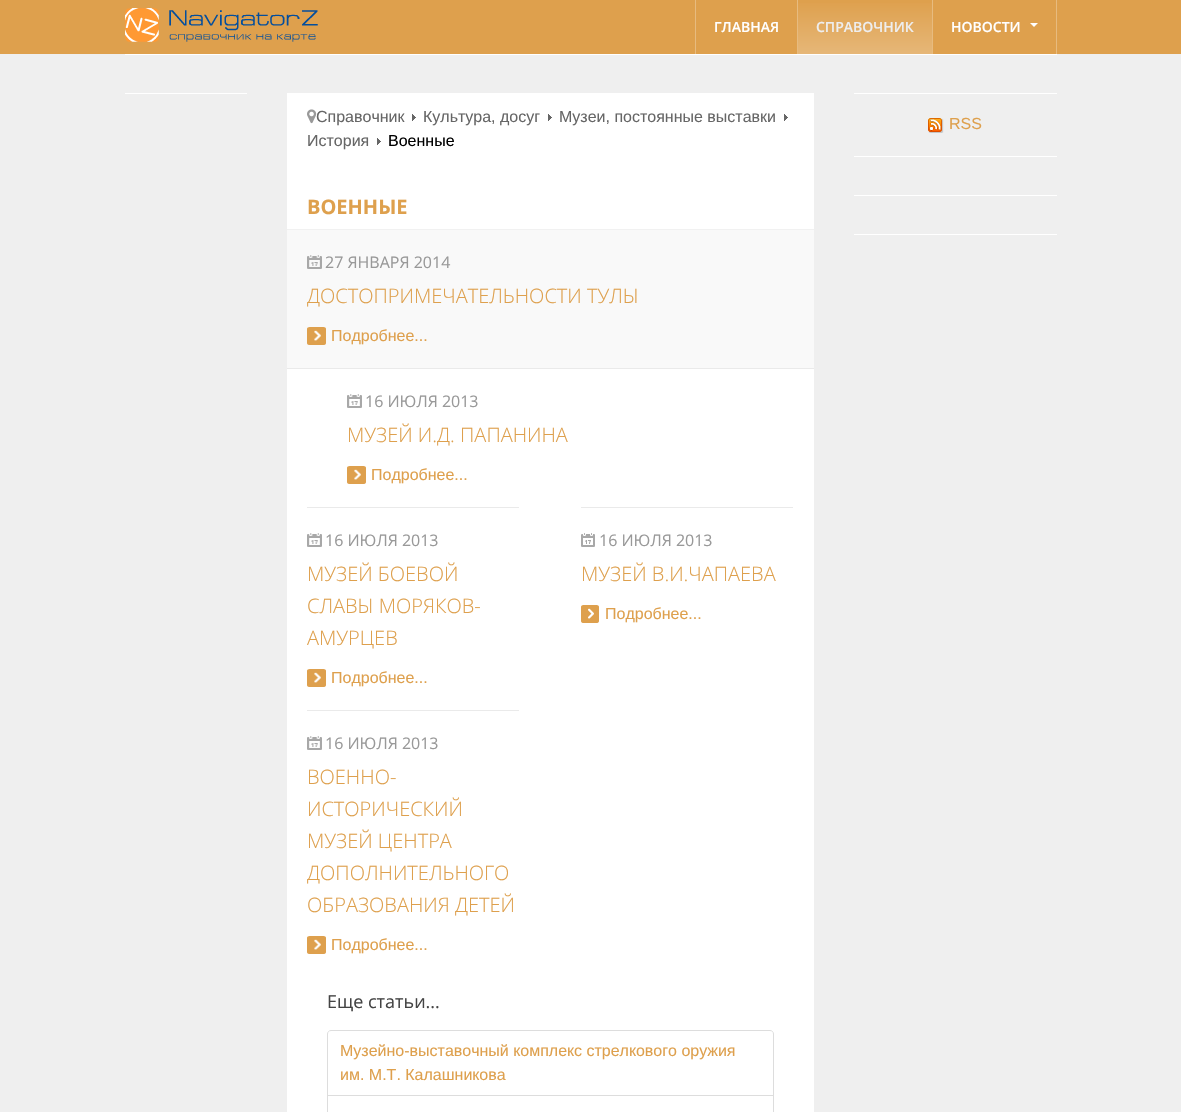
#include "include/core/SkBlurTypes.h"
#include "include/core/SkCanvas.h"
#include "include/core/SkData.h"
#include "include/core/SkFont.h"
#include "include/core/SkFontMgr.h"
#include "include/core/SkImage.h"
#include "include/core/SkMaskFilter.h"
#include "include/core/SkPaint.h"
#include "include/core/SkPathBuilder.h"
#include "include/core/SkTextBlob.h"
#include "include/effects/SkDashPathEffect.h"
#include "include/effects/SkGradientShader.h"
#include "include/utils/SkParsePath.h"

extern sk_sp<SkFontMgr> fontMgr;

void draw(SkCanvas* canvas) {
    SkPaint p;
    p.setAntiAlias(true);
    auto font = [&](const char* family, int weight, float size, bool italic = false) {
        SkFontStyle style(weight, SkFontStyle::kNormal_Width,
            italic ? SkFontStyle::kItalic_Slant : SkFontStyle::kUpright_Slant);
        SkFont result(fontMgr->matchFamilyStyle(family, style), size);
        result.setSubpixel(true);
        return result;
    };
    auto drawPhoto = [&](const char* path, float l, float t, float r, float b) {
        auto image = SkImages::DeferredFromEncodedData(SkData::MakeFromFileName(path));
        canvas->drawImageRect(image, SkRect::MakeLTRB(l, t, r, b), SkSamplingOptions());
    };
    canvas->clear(0xFFEFEFEF);
    p.setColor(0xFFDEA04D);
    canvas->drawRect(SkRect::MakeLTRB(0, 0, 1181, 54), p);
    drawPhoto("media/1.png", 125, 8, 318, 42);
    p.setColor(0xFFE7BB7F);
    canvas->drawRect(SkRect::MakeLTRB(695, 0, 696, 54), p);
    canvas->drawRect(SkRect::MakeLTRB(797, 0, 798, 54), p);
    auto font1 = font("Open Sans", 600, 14);
    p.setColor(0xFFFFFFFF);
    canvas->drawString("ГЛАВНАЯ", 714, 32, font1, p);
    p.setColor(0xFFE7BB7F);
    canvas->drawRect(SkRect::MakeLTRB(932, 0, 933, 54), p);
    {
        const SkColor colors[] = {0xFFDEA04D, 0xFFE6B778};
        const float stops[] = {0, 1};
        const SkPoint ends[] = {{865, 0}, {865, 54}};
        p.setShader(SkGradientShader::MakeLinear(ends, colors, stops, 2, SkTileMode::kClamp));
        p.setAlpha(255);
    }
    canvas->drawRect(SkRect::MakeLTRB(798, 3, 932, 54), p);
    p.setShader(nullptr);
    p.setColor(0xFFEEEEEE);
    canvas->drawString("СПРАВОЧНИК", 816, 32, font1, p);
    p.setColor(0xFFE7BB7F);
    canvas->drawRect(SkRect::MakeLTRB(1056, 0, 1057, 54), p);
    p.setColor(0xFFFFFFFF);
    canvas->drawString("НОВОСТИ", 951, 32, font1, p);
    canvas->drawPath(SkPathBuilder().moveTo(1030, 23).lineTo(1038, 23).lineTo(1034, 27).close().detach(), p);
    {
        const struct { float l, t, r, b; SkColor color; } items[] = {
            {125, 54, 1057, 55, 0xFFFFFFFF},
            {125, 93, 247, 94, 0xFFFFFFFF},
            {287, 93, 814, 1112, 0xFFFFFFFF},
        };
        for (auto [l, t, r, b, color] : items) {
            p.setColor(color);
            canvas->drawRect(SkRect::MakeLTRB(l, t, r, b), p);
        }
    }
    drawPhoto("media/2.png", 307, 109, 317, 124);
    auto font2 = font("Liberation Sans", 400, 16);
    p.setColor(0xFF666666);
    canvas->drawString("Справочник", 316, 122, font2, p);
    drawPhoto("media/3.png", 412, 114, 416, 121);
    canvas->drawString("Культура, досуг", 423, 122, font2, p);
    drawPhoto("media/3.png", 548, 114, 552, 121);
    canvas->drawString("Музеи, постоянные выставки", 559, 122, font2, p);
    drawPhoto("media/3.png", 784, 114, 788, 121);
    canvas->drawString("История", 307, 146, font2, p);
    drawPhoto("media/3.png", 377, 138, 381, 145);
    p.setColor(0xFF000000);
    canvas->drawString("Военные", 388, 146, font2, p);
    p.setColor(0xFFF1F1F1);
    canvas->drawRect(SkRect::MakeLTRB(287, 229, 814, 230), p);
    auto font3 = font("Open Sans", 700, 20);
    p.setColor(0xFFDEA04D);
    canvas->drawString("ВОЕННЫЕ", 307, 214, font3, p);
    p.setColor(0xFFF9F9F9);
    canvas->drawRect(SkRect::MakeLTRB(287, 230, 814, 368), p);
    p.setColor(0xFFEAEAEA);
    canvas->drawRect(SkRect::MakeLTRB(287, 368, 814, 369), p);
    drawPhoto("media/4.png", 307, 255, 322, 269);
    auto font4 = font("Open Sans", 400, 16);
    p.setColor(0xFF999999);
    canvas->drawString("27 ЯНВАРЯ 2014", 325, 268, font4, p);
    auto font5 = font("Open Sans", 300, 20);
    p.setColor(0xFFDEA04D);
    canvas->drawString("ДОСТОПРИМЕЧАТЕЛЬНОСТИ ТУЛЫ", 307, 303, font5, p);
    drawPhoto("media/5.png", 307, 327, 326, 345);
    canvas->drawString("Подробнее...", 331, 341, font2, p);
    drawPhoto("media/6.png", 347, 394, 362, 408);
    p.setColor(0xFF999999);
    canvas->drawString("16 ИЮЛЯ 2013", 365, 407, font4, p);
    p.setColor(0xFFDEA04D);
    canvas->drawString("МУЗЕЙ И.Д. ПАПАНИНА", 347, 442, font5, p);
    drawPhoto("media/7.png", 347, 466, 366, 484);
    canvas->drawString("Подробнее...", 371, 480, font2, p);
    p.setColor(0xFFEAEAEA);
    canvas->drawRect(SkRect::MakeLTRB(307, 507, 519, 508), p);
    drawPhoto("media/6.png", 307, 533, 322, 547);
    p.setColor(0xFF999999);
    canvas->drawString("16 ИЮЛЯ 2013", 325, 546, font4, p);
    p.setColor(0xFFDEA04D);
    {
        const struct { const char* s; float x, y; } items[] = {
            {"МУЗЕЙ БОЕВОЙ", 307, 581},
            {"СЛАВЫ МОРЯКОВ-", 307, 613},
            {"АМУРЦЕВ", 307, 645},
        };
        for (auto [s, x, y] : items) {
            canvas->drawString(s, x, y, font5, p);
        }
    }
    drawPhoto("media/7.png", 307, 669, 326, 687);
    canvas->drawString("Подробнее...", 331, 683, font2, p);
    p.setColor(0xFFEAEAEA);
    canvas->drawRect(SkRect::MakeLTRB(581, 507, 793, 508), p);
    drawPhoto("media/8.png", 581, 533, 595, 547);
    p.setColor(0xFF999999);
    canvas->drawString("16 ИЮЛЯ 2013", 599, 546, font4, p);
    p.setColor(0xFFDEA04D);
    canvas->drawString("МУЗЕЙ В.И.ЧАПАЕВА", 581, 581, font5, p);
    drawPhoto("media/9.png", 581, 605, 599, 623);
    canvas->drawString("Подробнее...", 605, 619, font2, p);
    p.setColor(0xFFEAEAEA);
    canvas->drawRect(SkRect::MakeLTRB(307, 710, 519, 711), p);
    drawPhoto("media/6.png", 307, 736, 322, 750);
    p.setColor(0xFF999999);
    canvas->drawString("16 ИЮЛЯ 2013", 325, 749, font4, p);
    p.setColor(0xFFDEA04D);
    {
        const struct { const char* s; float x, y; } items[] = {
            {"ВОЕННО-", 307, 784},
            {"ИСТОРИЧЕСКИЙ", 307, 816},
            {"МУЗЕЙ ЦЕНТРА", 307, 848},
            {"ДОПОЛНИТЕЛЬНОГО", 307, 880},
            {"ОБРАЗОВАНИЯ ДЕТЕЙ", 307, 912},
        };
        for (auto [s, x, y] : items) {
            canvas->drawString(s, x, y, font5, p);
        }
    }
    drawPhoto("media/7.png", 307, 936, 326, 954);
    canvas->drawString("Подробнее...", 331, 950, font2, p);
    auto font6 = font("Open Sans", 400, 18);
    p.setColor(0xFF444444);
    canvas->drawString("Еще статьи...", 327, 1008, font6, p);
    p.setStyle(SkPaint::kStroke_Style);
    p.setStrokeWidth(1);
    p.setColor(0xFFDDDDDD);
    canvas->drawPath(SkPathBuilder().moveTo(331, 1030.5f).lineTo(770, 1030.5f).cubicTo(772, 1030.5f, 773.5f, 1032, 773.5f, 1034).lineTo(773.5f, 1095.5f).lineTo(327.5f, 1095.5f).lineTo(327.5f, 1034).cubicTo(327.5f, 1032, 329, 1030.5f, 331, 1030.5f).close().detach(), p);
    p.setStyle(SkPaint::kFill_Style);
    p.setColor(0xFFDEA04D);
    canvas->drawString("Музейно-выставочный комплекс стрелкового оружия", 340, 1056, font2, p);
    canvas->drawString("им. М.Т. Калашникова", 340, 1080, font2, p);
    p.setStyle(SkPaint::kStroke_Style);
    p.setColor(0xFFDDDDDD);
    canvas->drawRect(SkRect::MakeLTRB(327.5f, 1095.5f, 773.5f, 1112.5f), p);
    p.setStyle(SkPaint::kFill_Style);
    p.setColor(0xFFFFFFFF);
    canvas->drawRect(SkRect::MakeLTRB(854, 93, 1057, 94), p);
    drawPhoto("media/10.png", 928, 118, 944, 133);
    p.setColor(0xFFDEA04D);
    canvas->drawString("RSS", 949, 129, font2, p);
    {
        const struct { float l, t, r, b; SkColor color; } items[] = {
            {854, 156, 1057, 157, 0xFFFFFFFF},
            {854, 195, 1057, 196, 0xFFFFFFFF},
            {854, 234, 1057, 235, 0xFFFFFFFF},
        };
        for (auto [l, t, r, b, color] : items) {
            p.setColor(color);
            canvas->drawRect(SkRect::MakeLTRB(l, t, r, b), p);
        }
    }
}
